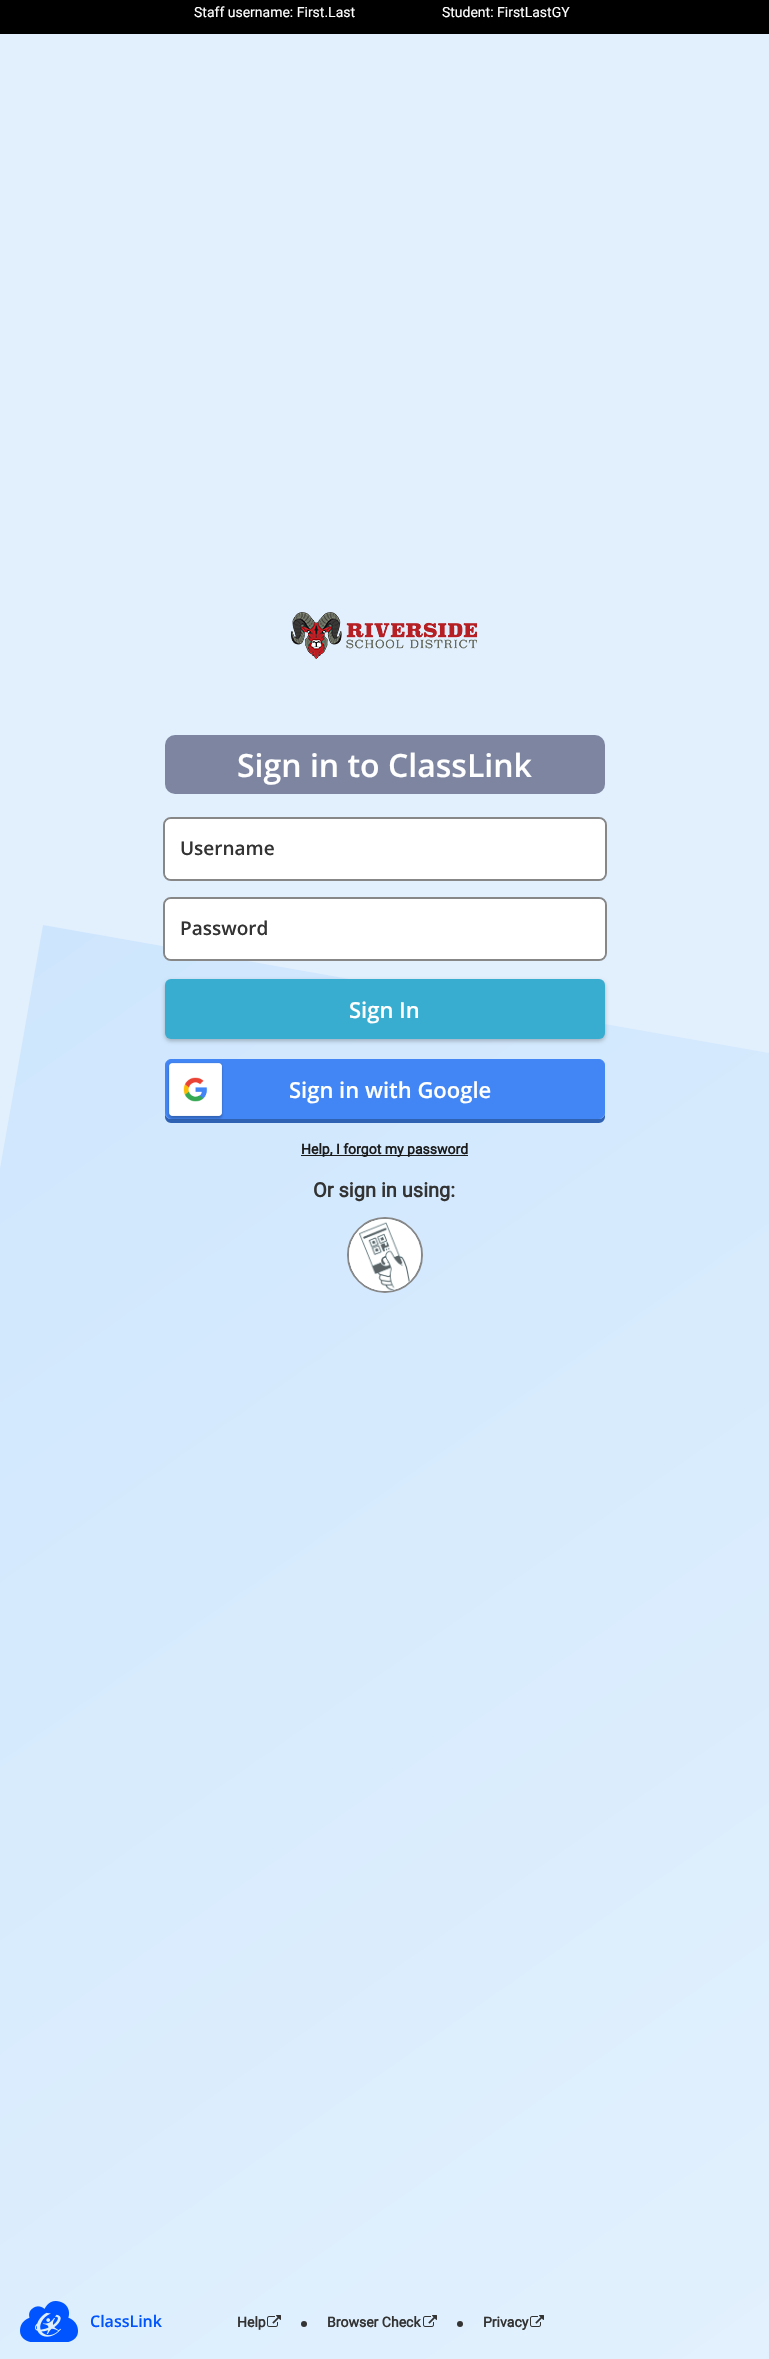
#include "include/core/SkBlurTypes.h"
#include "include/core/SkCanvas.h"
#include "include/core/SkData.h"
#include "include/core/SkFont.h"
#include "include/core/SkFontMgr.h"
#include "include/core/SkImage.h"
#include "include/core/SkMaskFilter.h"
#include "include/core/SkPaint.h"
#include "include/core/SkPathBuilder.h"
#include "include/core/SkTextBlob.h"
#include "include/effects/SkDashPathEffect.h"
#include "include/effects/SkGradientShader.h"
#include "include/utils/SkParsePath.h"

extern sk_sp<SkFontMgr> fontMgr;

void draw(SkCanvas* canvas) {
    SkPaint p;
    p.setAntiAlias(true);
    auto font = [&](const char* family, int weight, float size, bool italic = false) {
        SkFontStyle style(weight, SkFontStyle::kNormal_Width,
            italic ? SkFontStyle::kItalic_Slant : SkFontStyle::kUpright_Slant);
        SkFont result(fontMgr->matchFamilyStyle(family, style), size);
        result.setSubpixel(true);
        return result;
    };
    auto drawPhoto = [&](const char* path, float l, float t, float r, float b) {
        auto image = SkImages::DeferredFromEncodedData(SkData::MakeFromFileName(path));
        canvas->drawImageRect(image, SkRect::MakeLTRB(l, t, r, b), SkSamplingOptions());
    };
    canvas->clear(0xFFE2F0FD);
    p.setColor(0xFF000000);
    canvas->drawRect(SkRect::MakeLTRB(0, 0, 769, 34), p);
    auto font1 = font("Roboto", 400, 14);
    p.setColor(0xFFFFFFFF);
    canvas->drawString("Staff username: First.Last                         Student: FirstLastGY", 194, 17, font1, p);
    drawPhoto("media/1.png", 291, 612, 477, 659);
    p.setColor(0xFF7D85A1);
    canvas->drawRoundRect(SkRect::MakeLTRB(165, 735, 605, 794), 10, 10, p);
    auto font2 = font("Open Sans", 600, 32);
    p.setColor(0xFFFFFFFF);
    canvas->drawString("Sign in to ClassLink", 237, 777, font2, p);
    p.setStyle(SkPaint::kStroke_Style);
    p.setStrokeWidth(2);
    p.setColor(0xFF878787);
    canvas->drawRoundRect(SkRect::MakeLTRB(164, 818, 606, 880), 7, 7, p);
    p.setStyle(SkPaint::kFill_Style);
    p.setColor(0xFFFFFFFF);
    canvas->drawRoundRect(SkRect::MakeLTRB(165, 819, 605, 879), 6, 6, p);
    auto font3 = font("Open Sans", 600, 19);
    p.setColor(0xFF333333);
    canvas->drawString("Username", 180, 855, font3, p);
    {
        const SkColor colors[] = {0xFFCEE6FD, 0xFFECF6FD};
        const float stops[] = {0, 1};
        const SkPoint ends[] = {{-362, 1209}, {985, 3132}};
        p.setShader(SkGradientShader::MakeLinear(ends, colors, stops, 2, SkTileMode::kClamp));
        p.setAlpha(255);
    }
    canvas->drawPath(SkPathBuilder().moveTo(43, 925).lineTo(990, 1092).lineTo(580, 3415).lineTo(-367, 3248).close().detach(), p);
    p.setStyle(SkPaint::kStroke_Style);
    p.setShader(nullptr);
    p.setColor(0xFF878787);
    canvas->drawRoundRect(SkRect::MakeLTRB(164, 898, 606, 960), 7, 7, p);
    p.setStyle(SkPaint::kFill_Style);
    p.setColor(0xFFFFFFFF);
    canvas->drawRoundRect(SkRect::MakeLTRB(165, 899, 605, 959), 6, 6, p);
    p.setColor(0xFF333333);
    canvas->drawString("Password", 180, 935, font3, p);
    p.setColor(0x40000000);
    p.setMaskFilter(SkMaskFilter::MakeBlur(kNormal_SkBlurStyle, 2));
    canvas->drawRoundRect(SkRect::MakeLTRB(165, 981, 605, 1041), 6, 6, p);
    p.setMaskFilter(nullptr);
    p.setColor(0xFF39ADD0);
    canvas->drawRoundRect(SkRect::MakeLTRB(165, 979, 605, 1039), 6, 6, p);
    auto font4 = font("Open Sans", 600, 22);
    p.setColor(0xFFFFFFFF);
    canvas->drawString("Sign In", 349, 1018, font4, p);
    p.setColor(0xFF3062B3);
    canvas->drawPath(SkPathBuilder().moveTo(165, 1113).lineTo(165, 1117).cubicTo(165, 1120, 168, 1123, 171, 1123).lineTo(599, 1123).cubicTo(602, 1123, 605, 1120, 605, 1117).lineTo(605, 1113).cubicTo(605, 1116, 602, 1119, 599, 1119).lineTo(171, 1119).cubicTo(168, 1119, 165, 1116, 165, 1113).close().detach(), p);
    p.setColor(0xFF4285F4);
    canvas->drawRoundRect(SkRect::MakeLTRB(165.5f, 1059.5f, 604.5f, 1118.5f), 5.5f, 5.5f, p);
    p.setStyle(SkPaint::kStroke_Style);
    p.setStrokeWidth(1);
    canvas->drawRoundRect(SkRect::MakeLTRB(165.5f, 1059.5f, 604.5f, 1118.5f), 5.5f, 5.5f, p);
    drawPhoto("media/2.png", 167, 1062, 224, 1120);
    p.setStyle(SkPaint::kFill_Style);
    p.setColor(0xFFFFFFFF);
    canvas->drawString("Sign in with Google", 289, 1098, font4, p);
    p.setColor(0xFF1B1B1B);
    canvas->drawRect(SkRect::MakeLTRB(301, 1155, 468, 1156), p);
    auto font5 = font("Roboto", 700, 14);
    canvas->drawString("Help, I forgot my password", 301, 1154, font5, p);
    auto font6 = font("Roboto", 700, 20);
    p.setColor(0xFF333333);
    canvas->drawString("Or sign in using:", 313, 1197, font6, p);
    p.setStyle(SkPaint::kStroke_Style);
    p.setStrokeWidth(2);
    p.setColor(0xFF878787);
    canvas->drawCircle(385, 1255, 37, p);
    p.setStyle(SkPaint::kFill_Style);
    p.setColor(0xFFFFFFFF);
    canvas->drawCircle(385, 1255, 36, p);
    drawPhoto("media/3.png", 349, 1219, 421, 1291);
    drawPhoto("media/4.png", 20, 2301, 78, 2342);
    auto font7 = font("Open Sans", 600, 16);
    p.setColor(0xFF0054FF);
    canvas->drawString("ClassLink", 90, 2327, font7, p);
    p.setColor(0xFF333333);
    canvas->drawString("Help", 237, 2327, font5, p);
    drawPhoto("media/5.png", 267, 2315, 281, 2327);
    canvas->drawCircle(304, 2324, 3, p);
    canvas->drawString("Browser Check", 327, 2327, font5, p);
    drawPhoto("media/6.png", 423, 2315, 437, 2327);
    canvas->drawCircle(460, 2324, 3, p);
    canvas->drawString("Privacy", 483, 2327, font5, p);
    drawPhoto("media/7.png", 530, 2315, 544, 2327);
}
